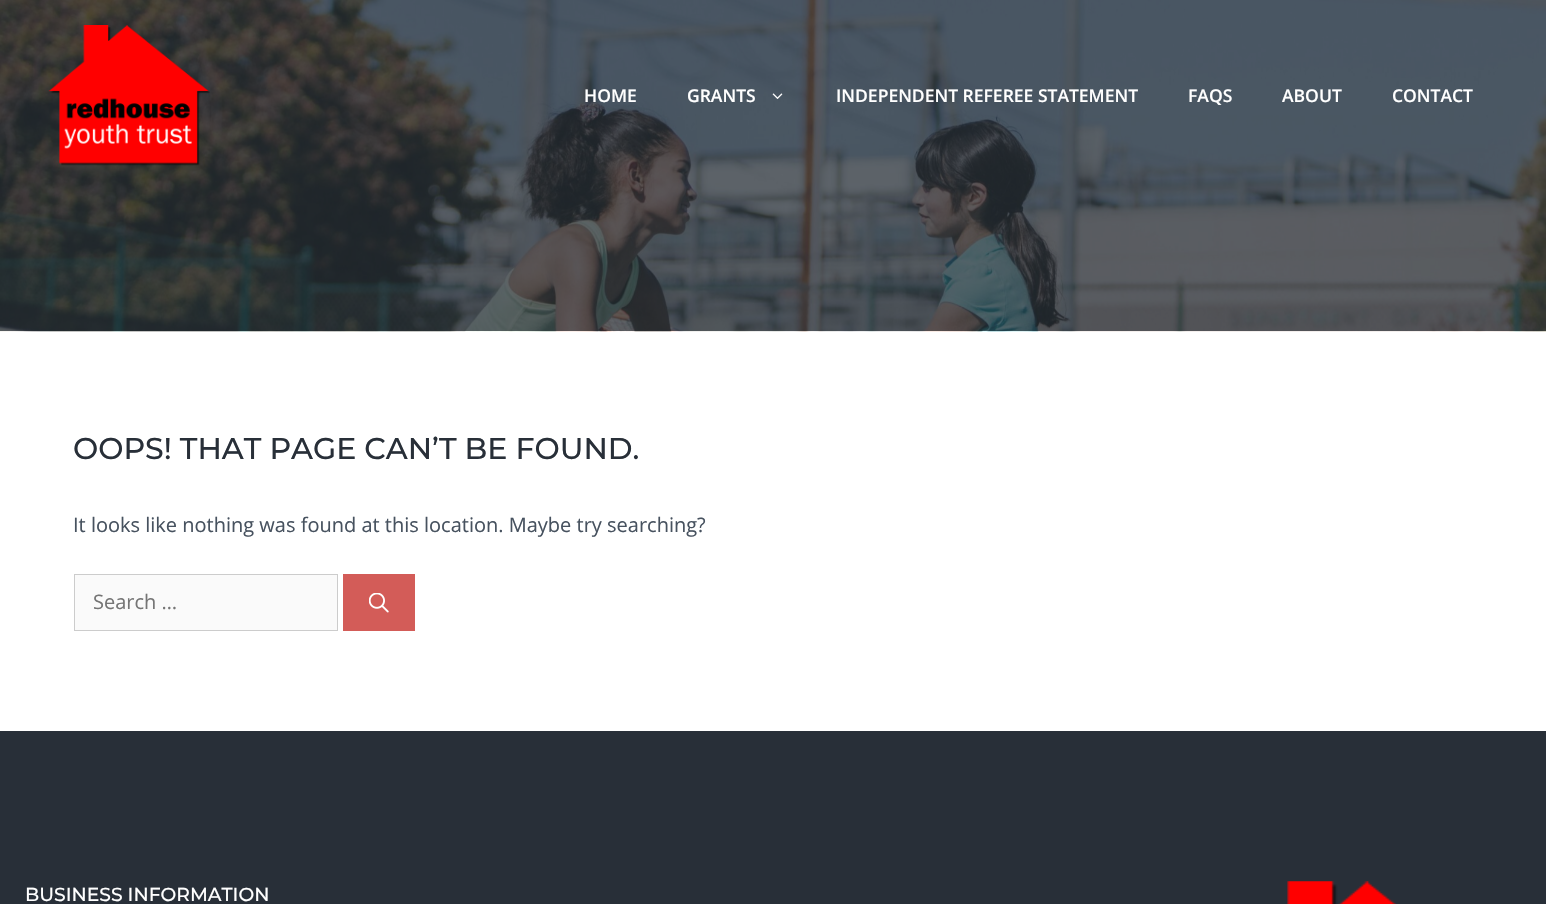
#include "include/core/SkBlurTypes.h"
#include "include/core/SkCanvas.h"
#include "include/core/SkData.h"
#include "include/core/SkFont.h"
#include "include/core/SkFontMgr.h"
#include "include/core/SkImage.h"
#include "include/core/SkMaskFilter.h"
#include "include/core/SkPaint.h"
#include "include/core/SkPathBuilder.h"
#include "include/core/SkTextBlob.h"
#include "include/effects/SkDashPathEffect.h"
#include "include/effects/SkGradientShader.h"
#include "include/utils/SkParsePath.h"

extern sk_sp<SkFontMgr> fontMgr;

void draw(SkCanvas* canvas) {
    SkPaint p;
    p.setAntiAlias(true);
    auto font = [&](const char* family, int weight, float size, bool italic = false) {
        SkFontStyle style(weight, SkFontStyle::kNormal_Width,
            italic ? SkFontStyle::kItalic_Slant : SkFontStyle::kUpright_Slant);
        SkFont result(fontMgr->matchFamilyStyle(family, style), size);
        result.setSubpixel(true);
        return result;
    };
    auto drawPhoto = [&](const char* path, float l, float t, float r, float b) {
        auto image = SkImages::DeferredFromEncodedData(SkData::MakeFromFileName(path));
        canvas->drawImageRect(image, SkRect::MakeLTRB(l, t, r, b), SkSamplingOptions());
    };
    canvas->clear(0xFFFFFFFF);
    p.setColor(0xFF282F38);
    canvas->drawRect(SkRect::MakeLTRB(0, 0, 1546, 331), p);
    drawPhoto("media/1.png", 0, 0, 1546, 332);
    drawPhoto("media/2.png", 48, 25, 210, 166);
    auto font1 = font("Open Sans", 600, 17.5f);
    p.setColor(0xFFFFFFFF);
    canvas->drawString("HOME", 584, 102, font1, p);
    canvas->drawString("GRANTS", 687, 102, font1, p);
    drawPhoto("media/3.png", 772, 93, 783, 99);
    {
        const struct { const char* s; float x, y; } items[] = {
            {"INDEPENDENT REFEREE STATEMENT", 836, 102},
            {"FAQS", 1188, 102},
            {"ABOUT", 1282, 102},
            {"CONTACT", 1392, 102},
        };
        for (auto [s, x, y] : items) {
            canvas->drawString(s, x, y, font1, p);
        }
    }
    auto font2 = font("Montserrat", 500, 30);
    p.setColor(0xFF282F38);
    canvas->drawString("OOPS! THAT PAGE CAN’T BE FOUND.", 73, 459, font2, p);
    auto font3 = font("Open Sans", 400, 20);
    p.setColor(0xFF47525F);
    canvas->drawString("It looks like nothing was found at this location. Maybe try searching?", 73, 532, font3, p);
    p.setColor(0xFFFAFAFA);
    canvas->drawRect(SkRect::MakeLTRB(74.5f, 574.5f, 337.5f, 630.5f), p);
    p.setStyle(SkPaint::kStroke_Style);
    p.setStrokeWidth(1);
    p.setColor(0xFFCCCCCC);
    canvas->drawRect(SkRect::MakeLTRB(74.5f, 574.5f, 337.5f, 630.5f), p);
    p.setStyle(SkPaint::kFill_Style);
    p.setColor(0xFF757575);
    canvas->drawString("Search …", 93, 609, font3, p);
    p.setColor(0xFFD35C58);
    canvas->drawRect(SkRect::MakeLTRB(343, 574, 415, 631), p);
    drawPhoto("media/4.png", 369, 593, 389, 613);
    p.setColor(0xFF282F38);
    canvas->drawRect(SkRect::MakeLTRB(0, 731, 1546, 904), p);
    auto font4 = font("Montserrat", 500, 18.75f);
    p.setColor(0xFFFFFFFF);
    canvas->drawString("BUSINESS INFORMATION", 25, 901, font4, p);
    drawPhoto("media/5.png", 1287, 881, 1396, 904);
}
